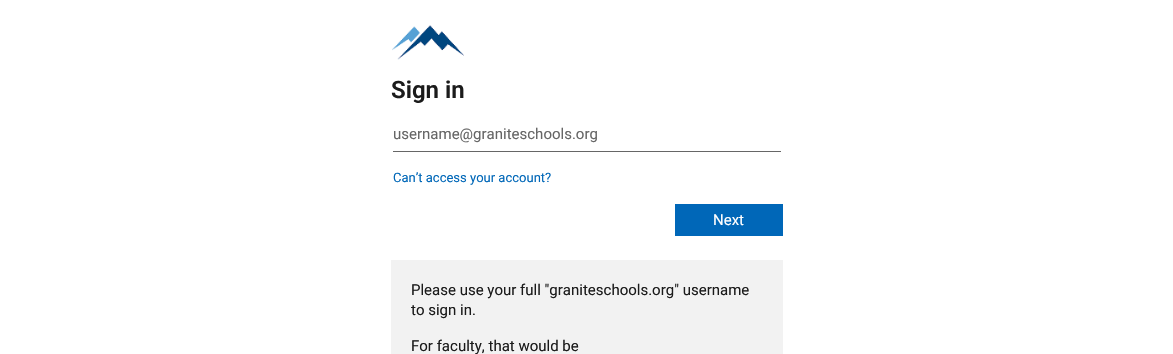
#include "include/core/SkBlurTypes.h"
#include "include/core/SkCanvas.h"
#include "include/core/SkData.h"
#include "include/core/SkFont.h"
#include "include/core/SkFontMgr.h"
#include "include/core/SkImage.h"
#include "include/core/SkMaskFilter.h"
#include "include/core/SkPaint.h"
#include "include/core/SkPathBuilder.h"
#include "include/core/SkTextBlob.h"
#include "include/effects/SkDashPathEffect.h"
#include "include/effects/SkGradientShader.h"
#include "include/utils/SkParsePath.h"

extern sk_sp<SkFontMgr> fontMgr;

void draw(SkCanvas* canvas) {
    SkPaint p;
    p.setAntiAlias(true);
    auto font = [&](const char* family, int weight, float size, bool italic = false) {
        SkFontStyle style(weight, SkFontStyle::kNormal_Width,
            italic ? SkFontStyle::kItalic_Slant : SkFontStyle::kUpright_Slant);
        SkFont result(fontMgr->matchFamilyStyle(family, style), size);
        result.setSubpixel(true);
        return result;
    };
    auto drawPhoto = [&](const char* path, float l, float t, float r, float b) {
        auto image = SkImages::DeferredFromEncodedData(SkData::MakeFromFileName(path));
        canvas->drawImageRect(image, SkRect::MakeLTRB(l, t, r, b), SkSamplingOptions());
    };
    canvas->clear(0xFFFFFFFF);
    drawPhoto("media/1.png", 392, 25, 464, 60);
    auto font1 = font("Roboto", 600, 24);
    p.setColor(0xFF1B1B1B);
    canvas->drawString("Sign in", 391, 98, font1, p);
    p.setColor(0xFF666666);
    canvas->drawRect(SkRect::MakeLTRB(393, 151, 781, 152), p);
    auto font2 = font("Roboto", 400, 15);
    canvas->drawString("username@graniteschools.org", 393, 139, font2, p);
    auto font3 = font("Roboto", 400, 13);
    p.setColor(0xFF0067B8);
    canvas->drawString("Can’t access your account?", 393, 182, font3, p);
    canvas->drawRect(SkRect::MakeLTRB(675, 204, 783, 236), p);
    p.setColor(0xFFFFFFFF);
    canvas->drawString("Next", 713, 225, font2, p);
    p.setColor(0xFFF2F2F2);
    canvas->drawRect(SkRect::MakeLTRB(391, 260, 783, 354), p);
    p.setColor(0xFF1B1B1B);
    {
        const struct { const char* s; float x, y; } items[] = {
            {"Please use your full \"graniteschools.org\" username", 411, 295},
            {"to sign in.", 411, 315},
            {"For faculty, that would be", 411, 351},
        };
        for (auto [s, x, y] : items) {
            canvas->drawString(s, x, y, font2, p);
        }
    }
}
